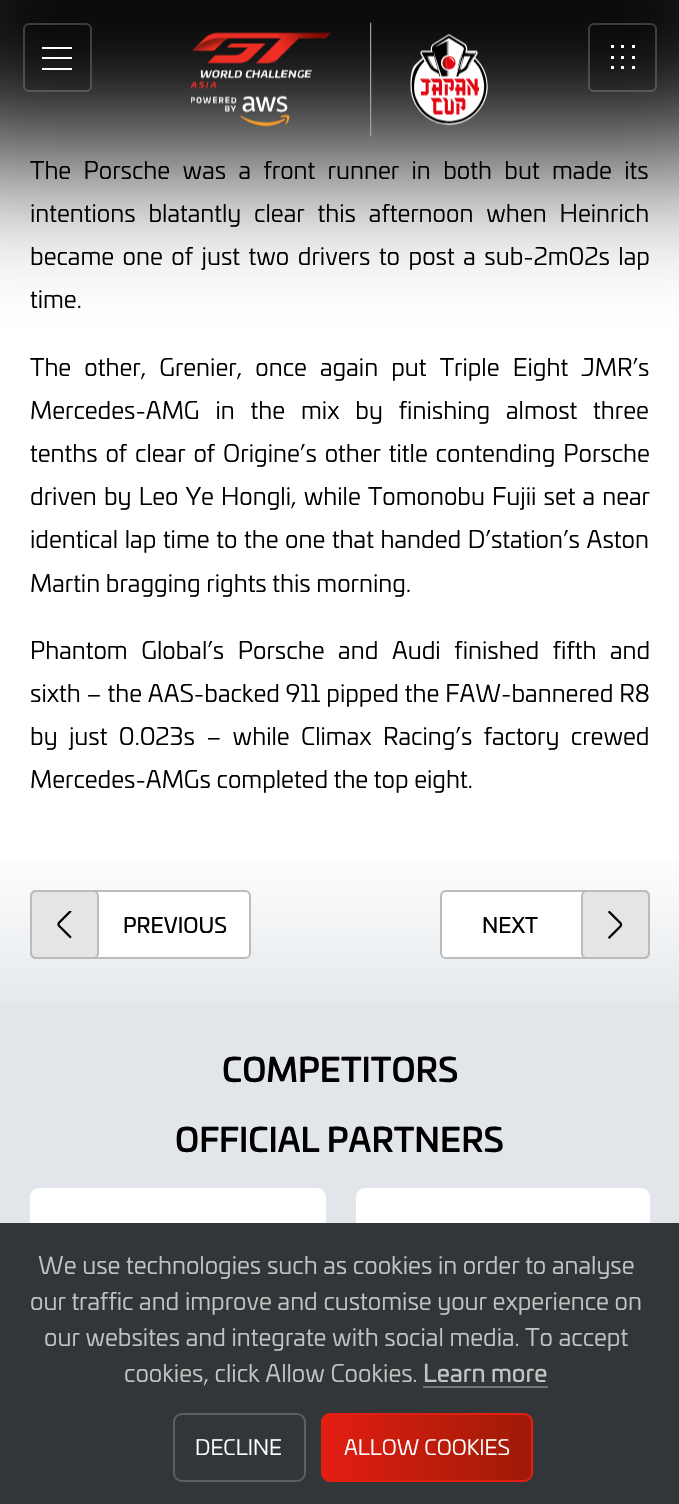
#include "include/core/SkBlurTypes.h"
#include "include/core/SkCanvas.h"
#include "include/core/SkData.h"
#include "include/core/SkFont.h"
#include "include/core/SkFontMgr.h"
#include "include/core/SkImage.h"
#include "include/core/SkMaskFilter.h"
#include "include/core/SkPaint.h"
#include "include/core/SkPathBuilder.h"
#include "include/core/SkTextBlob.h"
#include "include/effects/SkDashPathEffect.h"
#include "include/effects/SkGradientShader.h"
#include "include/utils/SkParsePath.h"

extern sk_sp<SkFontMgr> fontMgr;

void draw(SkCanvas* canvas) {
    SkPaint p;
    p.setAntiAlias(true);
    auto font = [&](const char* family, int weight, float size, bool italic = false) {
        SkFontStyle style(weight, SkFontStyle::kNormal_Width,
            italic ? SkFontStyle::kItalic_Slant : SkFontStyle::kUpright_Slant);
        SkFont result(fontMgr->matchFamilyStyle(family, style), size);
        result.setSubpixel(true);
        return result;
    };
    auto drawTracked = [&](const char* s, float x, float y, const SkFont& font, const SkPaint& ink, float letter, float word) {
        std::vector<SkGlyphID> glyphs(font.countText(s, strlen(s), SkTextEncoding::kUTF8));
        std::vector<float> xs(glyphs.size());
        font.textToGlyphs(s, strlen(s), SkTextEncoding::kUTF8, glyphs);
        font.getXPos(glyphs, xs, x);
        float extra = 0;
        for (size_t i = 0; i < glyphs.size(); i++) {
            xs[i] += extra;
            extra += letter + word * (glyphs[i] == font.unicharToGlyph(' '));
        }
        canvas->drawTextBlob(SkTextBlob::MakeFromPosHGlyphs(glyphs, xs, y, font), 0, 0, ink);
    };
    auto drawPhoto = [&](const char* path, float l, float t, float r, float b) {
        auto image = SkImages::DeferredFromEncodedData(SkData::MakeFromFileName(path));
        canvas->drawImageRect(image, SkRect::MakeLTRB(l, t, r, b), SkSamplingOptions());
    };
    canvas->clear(0xFFFFFFFF);
    p.setColor(0xFF000000);
    p.setMaskFilter(SkMaskFilter::MakeBlur(kNormal_SkBlurStyle, 75));
    canvas->drawRect(SkRect::MakeLTRB(-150, -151, 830, 150), p);
    p.setMaskFilter(nullptr);
    p.setColor(0x33000000);
    canvas->drawRoundRect(SkRect::MakeLTRB(23, 23, 92, 92), 6, 6, p);
    p.setStyle(SkPaint::kStroke_Style);
    p.setStrokeWidth(2);
    p.setColor(0x33FFFFFF);
    canvas->drawRoundRect(SkRect::MakeLTRB(24, 24, 91, 91), 5, 5, p);
    p.setStyle(SkPaint::kFill_Style);
    {
        const struct { float l, t, r, b; SkColor color; } items[] = {
            {42, 47, 72, 49, 0xFFFFFFFF},
            {42, 57, 72, 59, 0xFFFFFFFF},
            {42, 68, 72, 70, 0xFFFFFFFF},
        };
        for (auto [l, t, r, b, color] : items) {
            p.setColor(color);
            canvas->drawRect(SkRect::MakeLTRB(l, t, r, b), p);
        }
    }
    drawPhoto("media/1.png", 191, 22, 488, 137);
    p.setColor(0x33000000);
    canvas->drawRoundRect(SkRect::MakeLTRB(588, 23, 657, 92), 6, 6, p);
    p.setStyle(SkPaint::kStroke_Style);
    p.setColor(0x33FFFFFF);
    canvas->drawRoundRect(SkRect::MakeLTRB(589, 24, 656, 91), 5, 5, p);
    p.setStyle(SkPaint::kFill_Style);
    {
        const struct { float l, t, r, b; SkColor color; } items[] = {
            {611, 45, 614, 48, 0xFFFFFFFF},
            {621, 45, 624, 48, 0xFFFFFFFF},
            {632, 45, 635, 48, 0xFFFFFFFF},
            {611, 56, 614, 59, 0xFFFFFFFF},
            {621, 56, 624, 59, 0xFFFFFFFF},
            {632, 56, 635, 59, 0xFFFFFFFF},
            {611, 66, 614, 69, 0xFFFFFFFF},
            {621, 66, 624, 69, 0xFFFFFFFF},
            {632, 66, 635, 69, 0xFFFFFFFF},
        };
        for (auto [l, t, r, b, color] : items) {
            p.setColor(color);
            canvas->drawRect(SkRect::MakeLTRB(l, t, r, b), p);
        }
    }
    auto font1 = font("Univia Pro", 400, 24);
    p.setColor(0xFF000000);
    drawTracked("The Porsche was a front runner in both but made its", 30, 179, font1, p, 0, 6.75f);
    drawTracked("intentions blatantly clear this afternoon when Heinrich", 30, 222, font1, p, 0, 7.25f);
    drawTracked("became one of just two drivers to post a sub-2m02s lap", 30, 265, font1, p, 0, 2.9f);
    canvas->drawString("time.", 30, 308, font1, p);
    drawTracked("The other, Grenier, once again put Triple Eight JMR’s", 30, 376, font1, p, 0, 7.5f);
    drawTracked("Mercedes-AMG in the mix by finishing almost three", 30, 419, font1, p, 0, 10.25f);
    drawTracked("tenths of clear of Origine’s other title contending Porsche", 30, 462, font1, p, 0, 2.25f);
    drawTracked("driven by Leo Ye Hongli, while Tomonobu Fujii set a near", 30, 505, font1, p, 0, 1.5f);
    drawTracked("identical lap time to the one that handed D’station’s Aston", 30, 548, font1, p, 0, 1);
    canvas->drawString("Martin bragging rights this morning.", 30, 592, font1, p);
    drawTracked("Phantom Global’s Porsche and Audi finished fifth and", 30, 659, font1, p, 0, 8);
    drawTracked("sixth – the AAS-backed 911 pipped the FAW-bannered R8", 30, 702, font1, p, 0, 0.25f);
    drawTracked("by just 0.023s – while Climax Racing’s factory crewed", 30, 745, font1, p, 0, 5.75f);
    canvas->drawString("Mercedes-AMGs completed the top eight.", 30, 788, font1, p);
    {
        const SkColor colors[] = {0xFFE5E9ED, 0xFFFFFFFF};
        const float stops[] = {0, 1};
        const SkPoint ends[] = {{340, 1004}, {340, 845}};
        p.setShader(SkGradientShader::MakeLinear(ends, colors, stops, 2, SkTileMode::kClamp));
        p.setAlpha(255);
    }
    canvas->drawRect(SkRect::MakeLTRB(0, 860, 679, 1004), p);
    p.setShader(nullptr);
    p.setColor(0xFFFFFFFF);
    canvas->drawRoundRect(SkRect::MakeLTRB(31, 891, 250, 958), 5, 5, p);
    p.setStyle(SkPaint::kStroke_Style);
    p.setColor(0xFFBBBBBB);
    canvas->drawRoundRect(SkRect::MakeLTRB(31, 891, 250, 958), 5, 5, p);
    p.setStyle(SkPaint::kFill_Style);
    p.setColor(0x1A000000);
    canvas->drawRoundRect(SkRect::MakeLTRB(31, 891, 98, 958), 5, 5, p);
    p.setStyle(SkPaint::kStroke_Style);
    p.setColor(0xFFBBBBBB);
    canvas->drawRoundRect(SkRect::MakeLTRB(31, 891, 98, 958), 5, 5, p);
    drawPhoto("media/2.png", 57, 911, 72, 939);
    auto font2 = font("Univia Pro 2", 400, 21);
    p.setStyle(SkPaint::kFill_Style);
    p.setColor(0xFF000000);
    canvas->drawString("PREVIOUS", 123, 933, font2, p);
    p.setColor(0xFFFFFFFF);
    canvas->drawRoundRect(SkRect::MakeLTRB(441, 891, 649, 958), 5, 5, p);
    p.setStyle(SkPaint::kStroke_Style);
    p.setColor(0xFFBBBBBB);
    canvas->drawRoundRect(SkRect::MakeLTRB(441, 891, 649, 958), 5, 5, p);
    p.setStyle(SkPaint::kFill_Style);
    p.setColor(0xFF000000);
    canvas->drawString("NEXT", 482, 933, font2, p);
    p.setColor(0x1A000000);
    canvas->drawRoundRect(SkRect::MakeLTRB(582, 891, 649, 958), 5, 5, p);
    p.setStyle(SkPaint::kStroke_Style);
    p.setColor(0xFFBBBBBB);
    canvas->drawRoundRect(SkRect::MakeLTRB(582, 891, 649, 958), 5, 5, p);
    drawPhoto("media/3.png", 608, 911, 623, 939);
    p.setStyle(SkPaint::kFill_Style);
    p.setColor(0xFFE2E6EA);
    canvas->drawRect(SkRect::MakeLTRB(0, 1004, 679, 1223), p);
    auto font3 = font("Univia Pro", 500, 33);
    p.setColor(0xFF000000);
    canvas->drawString("COMPETITORS", 222, 1082, font3, p);
    canvas->drawString("OFFICIAL PARTNERS", 175, 1152, font3, p);
    p.setColor(0xFFFFFFFF);
    canvas->drawRoundRect(SkRect::MakeLTRB(30, 1188, 326, 1484), 9, 9, p);
    canvas->drawRoundRect(SkRect::MakeLTRB(356, 1188, 650, 1484), 9, 9, p);
    p.setColor(0xFF333638);
    canvas->drawRect(SkRect::MakeLTRB(0, 1223, 679, 1504), p);
    p.setColor(0xFFC2C3C3);
    {
        const struct { const char* s; float x, y; } items[] = {
            {"We use technologies such as cookies in order to analyse", 38, 1274},
            {"our traffic and improve and customise your experience on", 30, 1310},
            {"our websites and integrate with social media. To accept", 44, 1346},
            {"cookies, click Allow Cookies.", 124, 1382},
        };
        for (auto [s, x, y] : items) {
            canvas->drawString(s, x, y, font1, p);
        }
    }
    auto font4 = font("Univia Pro 2", 400, 24);
    canvas->drawString("Learn more", 423, 1382, font4, p);
    p.setColor(0xFF707274);
    canvas->drawRect(SkRect::MakeLTRB(423, 1386, 548, 1388), p);
    p.setStyle(SkPaint::kStroke_Style);
    p.setColor(0xFF5C5E60);
    canvas->drawRoundRect(SkRect::MakeLTRB(174, 1414, 305, 1481), 8, 8, p);
    auto font5 = font("Univia Pro", 400, 21);
    p.setStyle(SkPaint::kFill_Style);
    p.setColor(0xFFFFFFFF);
    canvas->drawString("DECLINE", 195, 1455, font5, p);
    {
        const SkColor colors[] = {0xFFE31E12, 0xFF9D1A07};
        const float stops[] = {0, 1};
        const SkPoint ends[] = {{321, 1448}, {533, 1448}};
        p.setShader(SkGradientShader::MakeLinear(ends, colors, stops, 2, SkTileMode::kClamp));
        p.setAlpha(255);
    }
    canvas->drawRoundRect(SkRect::MakeLTRB(322, 1414, 532, 1481), 8, 8, p);
    p.setStyle(SkPaint::kStroke_Style);
    p.setShader(nullptr);
    p.setColor(0xFFE31E12);
    canvas->drawRoundRect(SkRect::MakeLTRB(322, 1414, 532, 1481), 8, 8, p);
    p.setStyle(SkPaint::kFill_Style);
    p.setColor(0xFFFFFFFF);
    canvas->drawString("ALLOW COOKIES", 344, 1455, font5, p);
}
